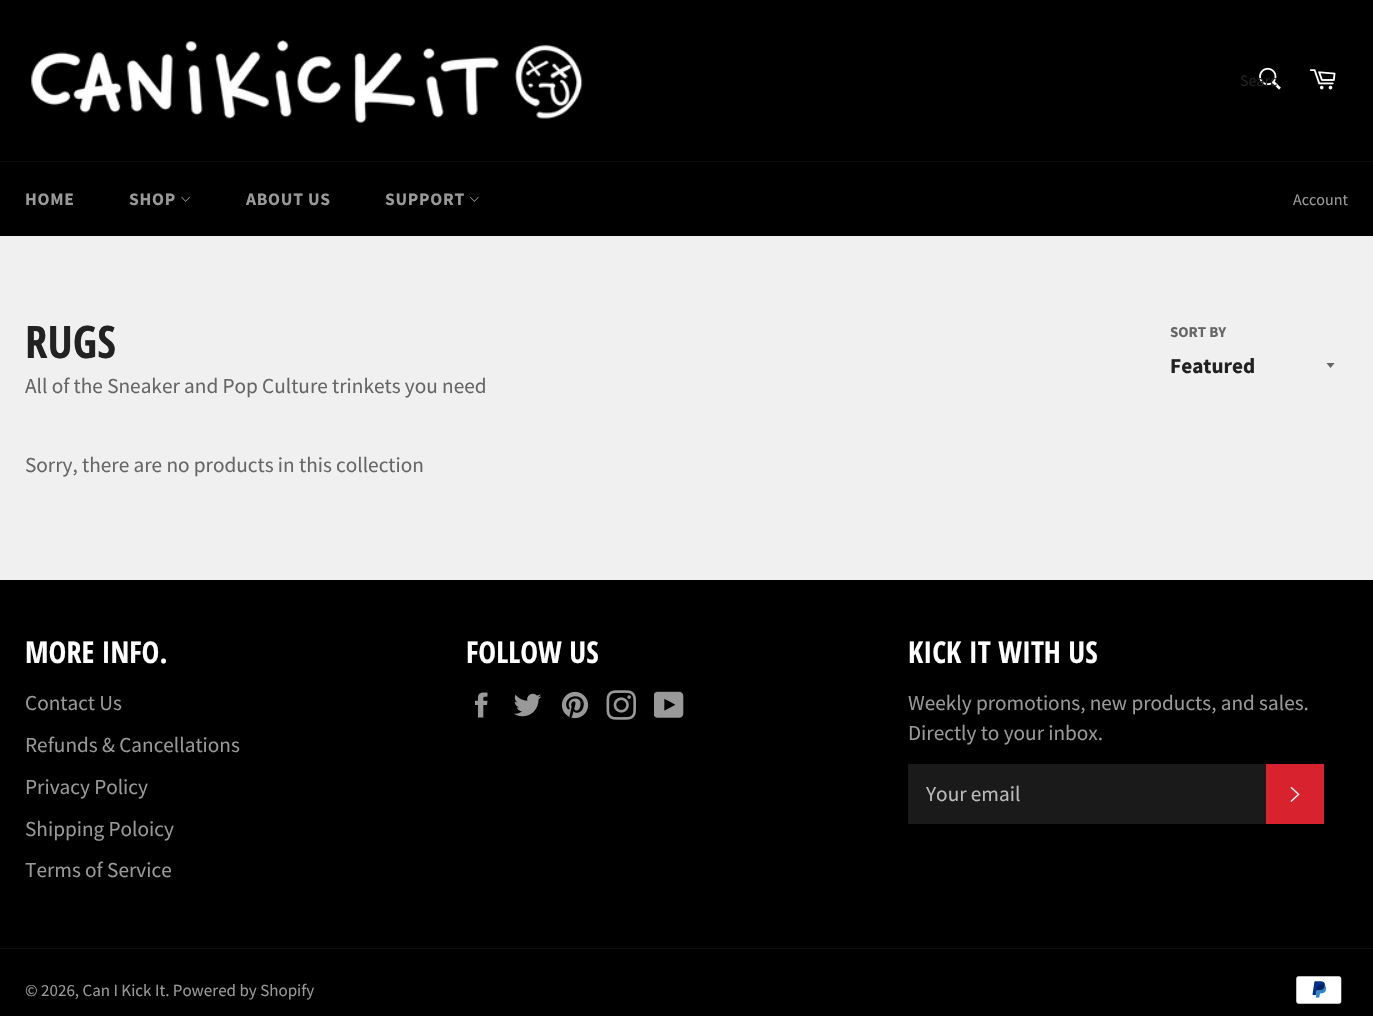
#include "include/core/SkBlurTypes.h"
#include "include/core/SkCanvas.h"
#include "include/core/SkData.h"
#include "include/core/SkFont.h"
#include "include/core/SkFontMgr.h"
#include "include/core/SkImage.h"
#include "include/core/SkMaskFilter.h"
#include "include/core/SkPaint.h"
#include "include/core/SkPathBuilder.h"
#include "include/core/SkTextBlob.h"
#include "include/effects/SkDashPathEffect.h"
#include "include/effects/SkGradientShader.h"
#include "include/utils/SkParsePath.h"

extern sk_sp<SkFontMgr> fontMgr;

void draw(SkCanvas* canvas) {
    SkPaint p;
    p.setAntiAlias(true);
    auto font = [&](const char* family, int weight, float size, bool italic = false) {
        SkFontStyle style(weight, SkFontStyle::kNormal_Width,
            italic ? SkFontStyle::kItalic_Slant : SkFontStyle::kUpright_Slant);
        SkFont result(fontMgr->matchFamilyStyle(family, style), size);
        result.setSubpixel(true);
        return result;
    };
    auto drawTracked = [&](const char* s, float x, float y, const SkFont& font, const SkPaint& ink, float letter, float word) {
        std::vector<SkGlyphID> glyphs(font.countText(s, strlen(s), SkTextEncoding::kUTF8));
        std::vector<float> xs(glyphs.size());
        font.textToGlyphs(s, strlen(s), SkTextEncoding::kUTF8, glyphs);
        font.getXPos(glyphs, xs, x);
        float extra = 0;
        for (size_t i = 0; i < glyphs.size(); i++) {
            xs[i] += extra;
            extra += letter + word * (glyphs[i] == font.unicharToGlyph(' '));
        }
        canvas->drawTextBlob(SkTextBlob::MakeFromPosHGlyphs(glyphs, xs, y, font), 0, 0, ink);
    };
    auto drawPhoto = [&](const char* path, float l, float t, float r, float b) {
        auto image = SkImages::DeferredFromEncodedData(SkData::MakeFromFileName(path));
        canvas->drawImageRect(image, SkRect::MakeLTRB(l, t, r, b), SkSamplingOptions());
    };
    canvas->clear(0xFFF0F0F0);
    p.setColor(0xFF000000);
    canvas->drawRect(SkRect::MakeLTRB(0, 0, 1373, 161), p);
    drawPhoto("media/1.png", 31, 40, 583, 123);
    drawPhoto("media/2.png", 1259, 67, 1281, 90);
    auto font1 = font("Source Sans Pro", 400, 16);
    p.setColor(0xFF222222);
    canvas->drawString("Searc", 1240, 86, font1, p);
    drawPhoto("media/3.png", 1309, 69, 1336, 90);
    p.setColor(0xFF000000);
    canvas->drawRect(SkRect::MakeLTRB(0, 162, 1373, 236), p);
    p.setColor(0xFF0D0D0D);
    canvas->drawRect(SkRect::MakeLTRB(0, 161, 1373, 162), p);
    auto font2 = font("Source Sans Pro", 700, 17.5f);
    p.setColor(0xFF999999);
    drawTracked("HOME", 25, 205, font2, p, 0.75f, 0);
    drawTracked("SHOP", 129, 205, font2, p, 0.75f, 0);
    drawPhoto("media/4.png", 181, 196, 190, 202);
    drawTracked("ABOUT US", 246, 205, font2, p, 0.75f, 0);
    drawTracked("SUPPORT", 385, 205, font2, p, 0.75f, 0);
    drawPhoto("media/5.png", 470, 196, 479, 202);
    canvas->drawString("Account", 1293, 205, font1, p);
    auto font3 = font("Open Sans Condensed", 700, 45);
    p.setColor(0xFF222222);
    canvas->drawString("RUGS", 25, 358, font3, p);
    auto font4 = font("Source Sans Pro", 400, 21.25f);
    p.setColor(0xFF666666);
    canvas->drawString("All of the Sneaker and Pop Culture trinkets you need", 25, 393, font4, p);
    auto font5 = font("Source Sans Pro", 700, 15);
    canvas->drawString("SORT BY", 1170, 337, font5, p);
    canvas->save();
    canvas->clipRect(SkRect::MakeLTRB(1326, 363, 1336, 369));
    canvas->drawPath(SkPathBuilder().moveTo(1326, 362.5f).lineTo(1330.5f, 368).lineTo(1335, 362.5f).close().detach(), p);
    canvas->restore();
    auto font6 = font("Source Sans Pro", 700, 21.25f);
    p.setColor(0xFF222222);
    canvas->drawString("Featured", 1170, 373, font6, p);
    p.setColor(0xFF666666);
    canvas->drawString("Sorry, there are no products in this collection", 25, 472, font4, p);
    p.setColor(0xFF000000);
    canvas->drawRect(SkRect::MakeLTRB(0, 580, 1373, 1016), p);
    auto font7 = font("Open Sans Condensed", 700, 30);
    p.setColor(0xFFFFFFFF);
    canvas->drawString("MORE INFO.", 25, 663, font7, p);
    p.setColor(0xFF999999);
    {
        const struct { const char* s; float x, y; } items[] = {
            {"Contact Us", 25, 710},
            {"Refunds & Cancellations", 25, 752},
            {"Privacy Policy", 25, 794},
            {"Shipping Poloicy", 25, 836},
            {"Terms of Service", 25, 877},
        };
        for (auto [s, x, y] : items) {
            canvas->drawString(s, x, y, font4, p);
        }
    }
    p.setColor(0xFFFFFFFF);
    canvas->drawString("FOLLOW US", 466, 663, font7, p);
    drawPhoto("media/6.png", 475, 692, 488, 718);
    drawPhoto("media/7.png", 514, 693, 542, 717);
    drawPhoto("media/8.png", 561, 691, 589, 719);
    drawPhoto("media/9.png", 606, 690, 636, 720);
    drawPhoto("media/10.png", 654, 691, 684, 718);
    canvas->drawString("KICK IT WITH US", 908, 663, font7, p);
    p.setColor(0xFF999999);
    canvas->drawString("Weekly promotions, new products, and sales.", 908, 710, font4, p);
    canvas->drawString("Directly to your inbox.", 908, 740, font4, p);
    p.setColor(0xFF1A1A1A);
    canvas->drawRect(SkRect::MakeLTRB(908, 764, 1266, 824), p);
    p.setColor(0xFFBABABA);
    canvas->drawString("Your email", 926, 801, font4, p);
    p.setColor(0xFFD8232F);
    canvas->drawRect(SkRect::MakeLTRB(1266, 764, 1324, 824), p);
    drawPhoto("media/11.png", 1290, 786, 1300, 802);
    p.setColor(0xFF0D0D0D);
    canvas->drawRect(SkRect::MakeLTRB(0, 948, 1373, 949), p);
    auto font8 = font("Source Sans Pro", 400, 17);
    p.setColor(0xFF999999);
    canvas->drawString("© 2026, Can I Kick It. Powered by Shopify", 25, 996, font8, p);
    drawPhoto("media/12.png", 1296, 976, 1342, 1004);
}
